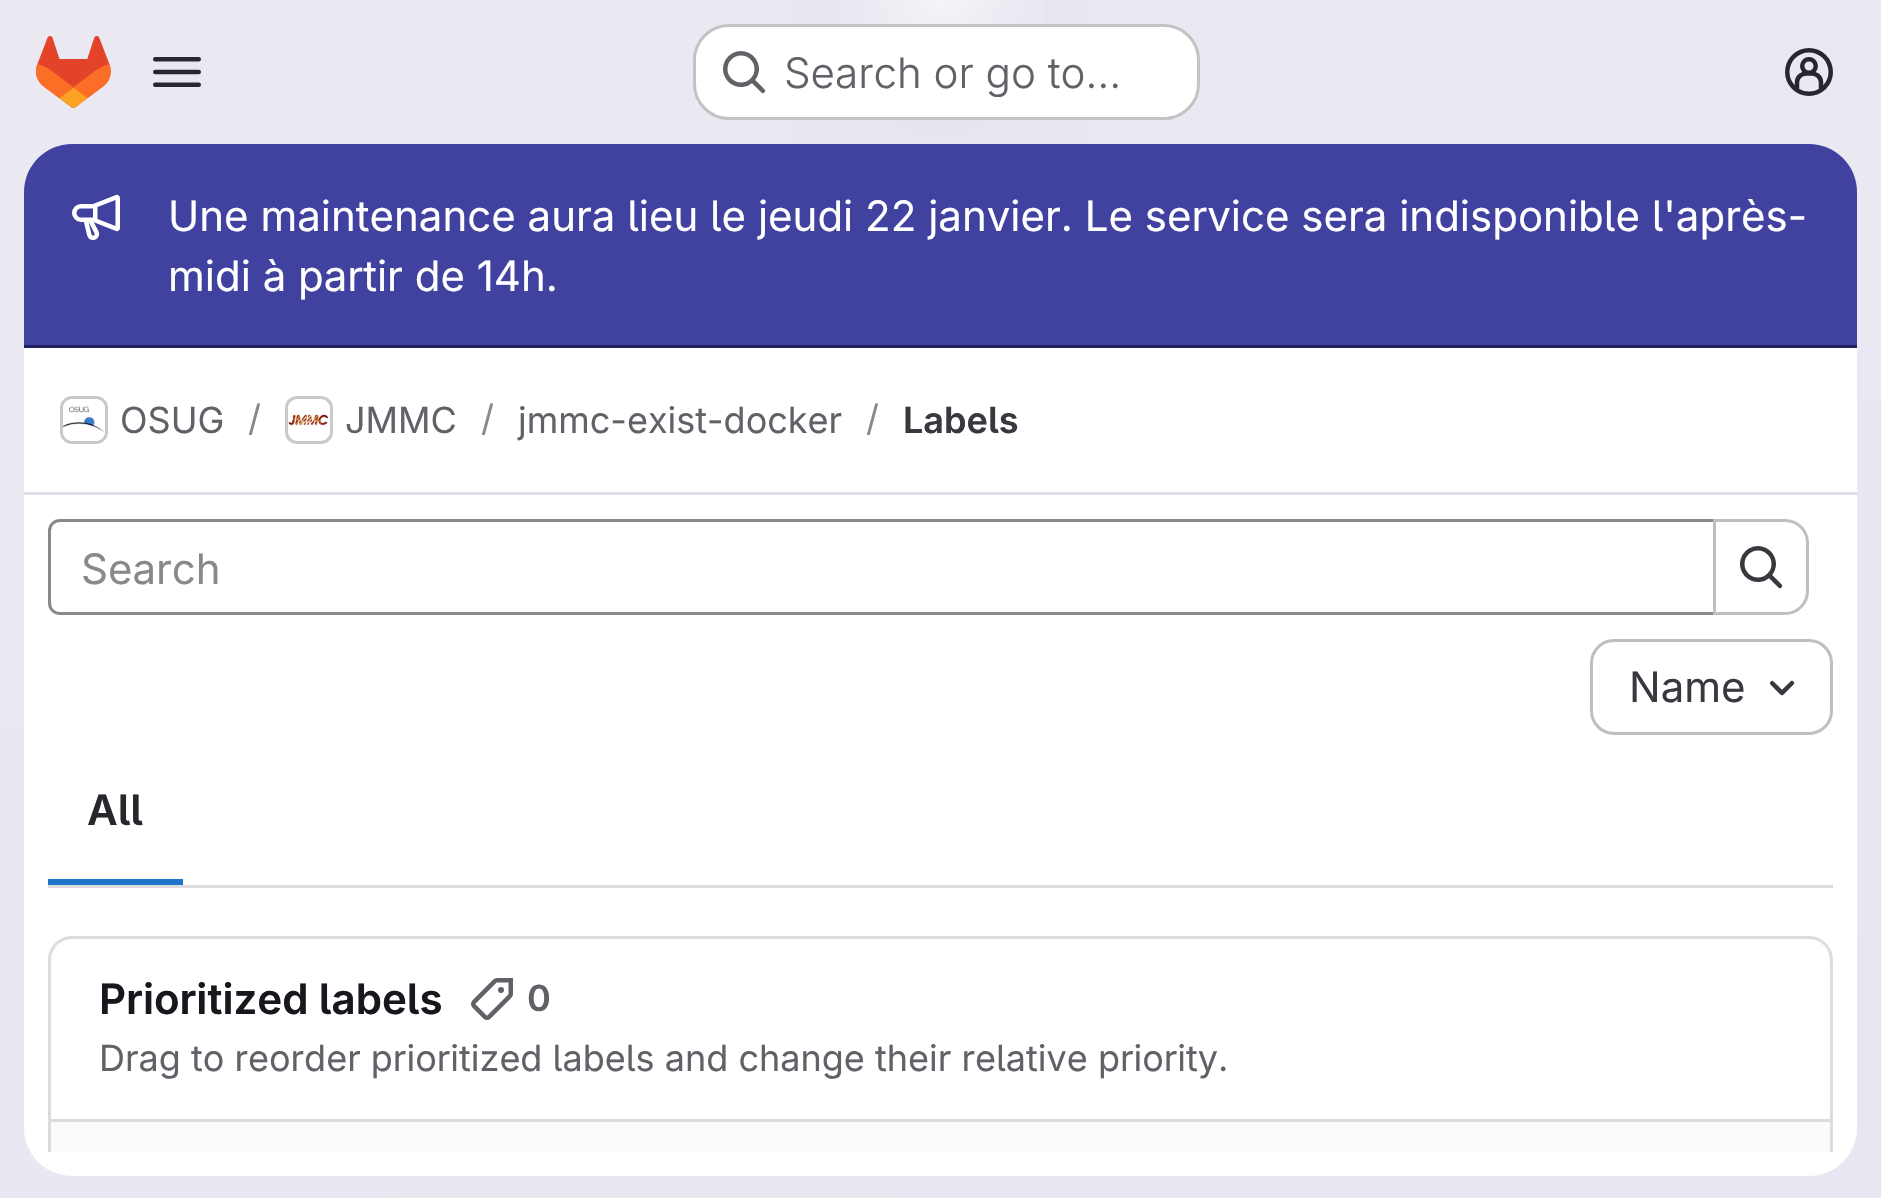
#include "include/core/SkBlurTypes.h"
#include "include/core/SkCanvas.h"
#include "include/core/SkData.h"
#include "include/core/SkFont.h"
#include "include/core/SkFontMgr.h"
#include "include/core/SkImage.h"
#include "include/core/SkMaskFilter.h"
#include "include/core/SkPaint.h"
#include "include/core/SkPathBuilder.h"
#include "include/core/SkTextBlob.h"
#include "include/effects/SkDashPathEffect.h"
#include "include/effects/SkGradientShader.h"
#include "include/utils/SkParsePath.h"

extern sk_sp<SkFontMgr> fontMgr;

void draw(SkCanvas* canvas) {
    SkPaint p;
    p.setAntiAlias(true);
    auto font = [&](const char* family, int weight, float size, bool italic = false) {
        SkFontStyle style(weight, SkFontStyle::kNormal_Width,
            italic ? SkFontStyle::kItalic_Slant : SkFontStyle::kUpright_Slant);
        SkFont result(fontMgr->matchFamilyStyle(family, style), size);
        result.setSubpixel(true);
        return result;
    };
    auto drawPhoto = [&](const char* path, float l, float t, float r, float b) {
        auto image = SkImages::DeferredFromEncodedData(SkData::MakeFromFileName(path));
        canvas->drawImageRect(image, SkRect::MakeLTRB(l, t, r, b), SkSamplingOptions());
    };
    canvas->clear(0xFFFFFFFF);
    {
        const SkColor colors[] = {0xFFE8E6F0, 0xFFEAE9F2};
        const float stops[] = {0, 0.7f};
        const SkPoint ends[] = {{1071, 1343}, {810, -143}};
        p.setShader(SkGradientShader::MakeLinear(ends, colors, stops, 2, SkTileMode::kClamp));
        p.setAlpha(255);
    }
    canvas->drawRect(SkRect::MakeLTRB(0, 0, 1881, 1198), p);
    {
        const SkColor colors[] = {0xFFE4E2ED, 0x00E4E2ED};
        const float stops[] = {0, 0.22f};
        SkMatrix m = SkMatrix::Translate(941, 0).preScale(941, 1200);
        p.setShader(SkGradientShader::MakeRadial({0, 0}, 1, colors, stops, 2, SkTileMode::kClamp, 0, &m));
        p.setAlpha(255);
    }
    canvas->drawRect(SkRect::MakeLTRB(793, 0, 1089, 144), p);
    {
        const SkColor colors[] = {0xFFE4E2EC, 0x00E4E2EC};
        const float stops[] = {0, 0.16f};
        SkMatrix m = SkMatrix::Translate(941, 0).preScale(941, 1200);
        p.setShader(SkGradientShader::MakeRadial({0, 0}, 1, colors, stops, 2, SkTileMode::kClamp, 0, &m));
        p.setAlpha(255);
    }
    canvas->drawRect(SkRect::MakeLTRB(879, 6, 1003, 86), p);
    {
        const SkColor colors[] = {0x99FFFFFF, 0x00FFFFFF};
        const float stops[] = {0, 0.08f};
        p.setShader(SkGradientShader::MakeRadial({941, 0}, 1525, colors, stops, 2, SkTileMode::kClamp));
        p.setAlpha(255);
    }
    canvas->drawRect(SkRect::MakeLTRB(839, 0, 1043, 24), p);
    drawPhoto("media/1.png", 36, 36, 111, 108);
    drawPhoto("media/2.png", 153, 57, 201, 87);
    p.setShader(nullptr);
    p.setColor(0xFFFFFFFF);
    canvas->drawRoundRect(SkRect::MakeLTRB(693, 24, 1200, 120), 36, 36, p);
    p.setStyle(SkPaint::kStroke_Style);
    p.setStrokeWidth(3);
    p.setColor(0x3D050506);
    canvas->drawRoundRect(SkRect::MakeLTRB(694.5f, 25.5f, 1198.5f, 118.5f), 34.5f, 34.5f, p);
    drawPhoto("media/3.png", 723, 51, 766, 94);
    auto font1 = font("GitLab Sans", 300, 42);
    p.setStyle(SkPaint::kFill_Style);
    p.setColor(0xFF626168);
    canvas->drawString("Search or go to…", 784, 88, font1, p);
    drawPhoto("media/4.png", 1785, 48, 1833, 96);
    p.setColor(0xFFFFFFFF);
    canvas->drawRoundRect(SkRect::MakeLTRB(24, 144, 1857, 1176), 48, 48, p);
    p.setColor(0xFF41419F);
    canvas->drawPath(SkPathBuilder().moveTo(72, 144).lineTo(1809, 144).cubicTo(1835.5f, 144, 1857, 165.5f, 1857, 192).lineTo(1857, 348).lineTo(24, 348).lineTo(24, 192).cubicTo(24, 165.5f, 45.5f, 144, 72, 144).close().detach(), p);
    p.setColor(0xFF222261);
    canvas->drawRect(SkRect::MakeLTRB(24, 345, 1857, 348), p);
    drawPhoto("media/5.png", 72, 194, 120, 240);
    auto font2 = font("GitLab Sans", 400, 42);
    p.setColor(0xFFFFFFFF);
    canvas->drawString("Une maintenance aura lieu le jeudi 22 janvier. Le service sera indisponible l'après-", 168, 231, font2, p);
    canvas->drawString("midi à partir de 14h.", 168, 291, font2, p);
    p.setColor(0xFFE1DFEC);
    canvas->drawRect(SkRect::MakeLTRB(24, 492, 1857, 495), p);
    p.setStyle(SkPaint::kStroke_Style);
    p.setColor(0xFFDCDCDE);
    canvas->drawRoundRect(SkRect::MakeLTRB(61.5f, 397.5f, 106.5f, 442.5f), 10.5f, 10.5f, p);
    drawPhoto("media/6.png", 63, 399, 105, 441);
    p.setColor(0x14050506);
    canvas->drawRoundRect(SkRect::MakeLTRB(61.5f, 397.5f, 106.5f, 442.5f), 10.5f, 10.5f, p);
    auto font3 = font("GitLab Sans", 400, 36);
    p.setStyle(SkPaint::kFill_Style);
    p.setColor(0xFF626168);
    canvas->drawString("OSUG", 120, 433, font3, p);
    p.setColor(0xFF89888D);
    canvas->drawString("/", 248, 431, font3, p);
    p.setStyle(SkPaint::kStroke_Style);
    p.setColor(0xFFDCDCDE);
    canvas->drawRoundRect(SkRect::MakeLTRB(286.5f, 397.5f, 331.5f, 442.5f), 10.5f, 10.5f, p);
    drawPhoto("media/7.png", 288, 414, 329, 426);
    p.setColor(0x14050506);
    canvas->drawRoundRect(SkRect::MakeLTRB(286.5f, 397.5f, 331.5f, 442.5f), 10.5f, 10.5f, p);
    p.setStyle(SkPaint::kFill_Style);
    p.setColor(0xFF626168);
    canvas->drawString("JMMC", 345, 433, font3, p);
    p.setColor(0xFF89888D);
    canvas->drawString("/", 481, 431, font3, p);
    p.setColor(0xFF626168);
    canvas->drawString("jmmc-exist-docker", 518, 433, font3, p);
    p.setColor(0xFF89888D);
    canvas->drawString("/", 866, 431, font3, p);
    auto font4 = font("GitLab Sans", 600, 36);
    p.setColor(0xFF3A383F);
    canvas->drawString("Labels", 903, 433, font4, p);
    p.setColor(0xFFDCDCDE);
    canvas->drawRect(SkRect::MakeLTRB(48, 885, 1833, 888), p);
    p.setStyle(SkPaint::kStroke_Style);
    p.setColor(0xFF89888D);
    canvas->drawPath(SkPathBuilder().moveTo(60, 520.5f).lineTo(1714.5f, 520.5f).lineTo(1714.5f, 613.5f).lineTo(60, 613.5f).cubicTo(54, 613.5f, 49.5f, 609, 49.5f, 603).lineTo(49.5f, 531).cubicTo(49.5f, 525, 54, 520.5f, 60, 520.5f).close().detach(), p);
    p.setStyle(SkPaint::kFill_Style);
    canvas->drawString("Search", 81, 584, font2, p);
    p.setColor(0xFFFFFFFF);
    canvas->drawPath(SkPathBuilder().moveTo(1714.5f, 520.5f).lineTo(1785, 520.5f).cubicTo(1797.5f, 520.5f, 1807.5f, 530.5f, 1807.5f, 543).lineTo(1807.5f, 591).cubicTo(1807.5f, 603.5f, 1797.5f, 613.5f, 1785, 613.5f).lineTo(1714.5f, 613.5f).close().detach(), p);
    p.setStyle(SkPaint::kStroke_Style);
    p.setColor(0xFFBFBFC3);
    canvas->drawPath(SkPathBuilder().moveTo(1714.5f, 520.5f).lineTo(1785, 520.5f).cubicTo(1797.5f, 520.5f, 1807.5f, 530.5f, 1807.5f, 543).lineTo(1807.5f, 591).cubicTo(1807.5f, 603.5f, 1797.5f, 613.5f, 1785, 613.5f).lineTo(1714.5f, 613.5f).close().detach(), p);
    drawPhoto("media/8.png", 1740, 546, 1783, 589);
    canvas->drawRoundRect(SkRect::MakeLTRB(1591.5f, 640.5f, 1831.5f, 733.5f), 22.5f, 22.5f, p);
    p.setStyle(SkPaint::kFill_Style);
    p.setColor(0xFF3A383F);
    canvas->drawString("Name", 1629, 702, font2, p);
    drawPhoto("media/9.png", 1769, 680, 1795, 696);
    auto font5 = font("GitLab Sans", 600, 42);
    p.setColor(0xFF28272D);
    canvas->drawString("All", 87, 825, font5, p);
    p.setColor(0xFF1F75CB);
    canvas->drawRect(SkRect::MakeLTRB(48, 879, 183, 885), p);
    p.setColor(0xFFFBFAFD);
    canvas->drawPath(SkPathBuilder().moveTo(72, 936).lineTo(1809, 936).cubicTo(1822.5f, 936, 1833, 946.5f, 1833, 960).lineTo(1833, 1152).lineTo(48, 1152).lineTo(48, 960).cubicTo(48, 946.5f, 58.5f, 936, 72, 936).close().detach(), p);
    canvas->save();
    canvas->clipRect(SkRect::MakeLTRB(24, 495, 1857, 1152));
    p.setColor(0xFFDCDCDE);
    canvas->drawPath(SkPathBuilder().moveTo(72, 936).cubicTo(59, 936, 48, 947, 48, 960).lineTo(48, 1170).lineTo(51, 1171).lineTo(51, 960).cubicTo(51, 948, 60, 939, 72, 939).lineTo(1809, 939).cubicTo(1821, 939, 1830, 948, 1830, 960).lineTo(1830, 1171).lineTo(1833, 1170).lineTo(1833, 960).cubicTo(1833, 947, 1822, 936, 1809, 936).close().detach(), p);
    canvas->restore();
    p.setColor(0xFFFFFFFF);
    canvas->drawPath(SkPathBuilder().moveTo(75, 939).lineTo(1806, 939).cubicTo(1819.5f, 939, 1830, 949.5f, 1830, 963).lineTo(1830, 1122).lineTo(51, 1122).lineTo(51, 963).cubicTo(51, 949.5f, 61.5f, 939, 75, 939).close().detach(), p);
    p.setColor(0xFFDCDCDE);
    canvas->drawRect(SkRect::MakeLTRB(51, 1119, 1830, 1122), p);
    p.setColor(0xFF18171D);
    canvas->drawString("Prioritized labels", 99, 1014, font5, p);
    drawPhoto("media/10.png", 471, 978, 513, 1020);
    p.setColor(0xFF626168);
    canvas->drawString("0", 527, 1011, font4, p);
    canvas->drawString("Drag to reorder prioritized labels and change their relative priority.", 99, 1071, font3, p);
}
